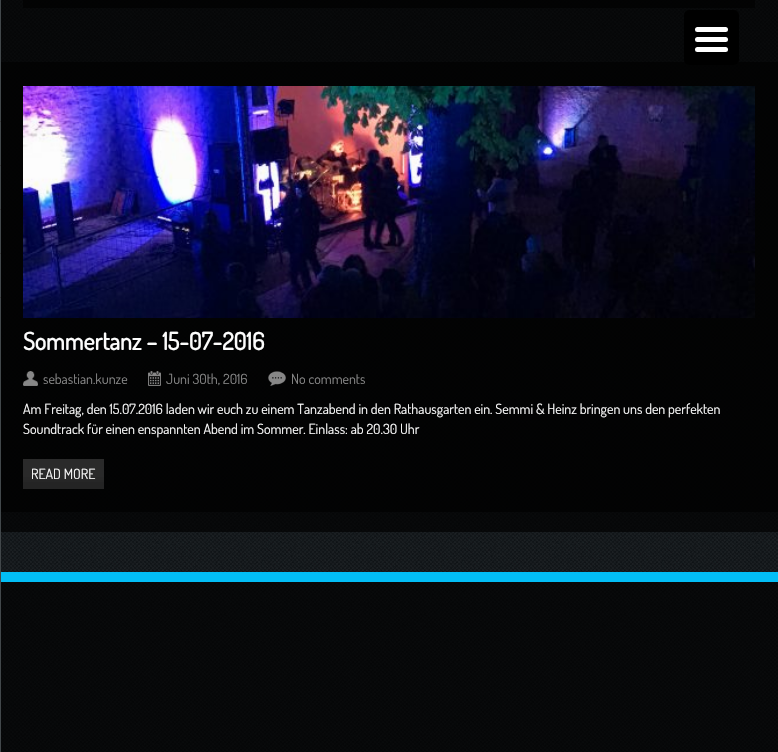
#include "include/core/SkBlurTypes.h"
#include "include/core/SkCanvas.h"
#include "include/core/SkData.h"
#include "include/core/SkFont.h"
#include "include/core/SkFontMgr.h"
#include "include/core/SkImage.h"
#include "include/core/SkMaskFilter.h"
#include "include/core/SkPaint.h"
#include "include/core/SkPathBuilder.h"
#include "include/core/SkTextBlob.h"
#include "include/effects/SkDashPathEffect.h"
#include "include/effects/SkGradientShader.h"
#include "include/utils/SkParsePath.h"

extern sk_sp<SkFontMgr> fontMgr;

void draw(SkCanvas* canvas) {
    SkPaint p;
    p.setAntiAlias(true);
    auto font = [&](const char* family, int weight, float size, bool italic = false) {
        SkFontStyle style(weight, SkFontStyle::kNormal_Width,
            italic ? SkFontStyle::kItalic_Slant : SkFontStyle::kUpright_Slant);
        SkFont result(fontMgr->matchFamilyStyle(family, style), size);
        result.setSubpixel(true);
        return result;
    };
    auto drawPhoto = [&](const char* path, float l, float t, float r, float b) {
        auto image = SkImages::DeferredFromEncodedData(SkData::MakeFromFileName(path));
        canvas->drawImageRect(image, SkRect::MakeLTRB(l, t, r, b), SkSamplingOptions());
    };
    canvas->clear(0xFFFFFFFF);
    drawPhoto("media/1.png", 1, 0, 778, 752);
    {
        const struct { float l, t, r, b; SkColor color; } items[] = {
            {0, 0, 1, 752, 0xFF42484B},
            {0, 121, 1, 122, 0xFF3B3B3B},
            {0, 165, 1, 166, 0xFF3B3B3B},
            {0, 209, 1, 210, 0xFF3B3B3B},
            {0, 253, 1, 254, 0xFF3B3B3B},
            {0, 297, 1, 298, 0xFF3B3B3B},
            {1, 0, 778, 532, 0xB3000000},
            {1, 62, 778, 512, 0xB3000000},
        };
        for (auto [l, t, r, b, color] : items) {
            p.setColor(color);
            canvas->drawRect(SkRect::MakeLTRB(l, t, r, b), p);
        }
    }
    p.setColor(0xFF000000);
    canvas->drawRoundRect(SkRect::MakeLTRB(684, 10, 739, 65), 5, 5, p);
    p.setColor(0xFFFFFFFF);
    canvas->drawRoundRect(SkRect::MakeLTRB(695, 37, 728, 42), 2.5f, 2.5f, p);
    canvas->drawRoundRect(SkRect::MakeLTRB(695, 27, 728, 32), 2.5f, 2.5f, p);
    canvas->drawRoundRect(SkRect::MakeLTRB(695, 47, 728, 52), 2.5f, 2.5f, p);
    p.setColor(0xB3000000);
    canvas->drawRect(SkRect::MakeLTRB(23, 0, 755, 8), p);
    drawPhoto("media/2.png", 23, 86, 755, 318);
    auto font1 = font("Dosis", 700, 24);
    p.setColor(0xFFFCFCFC);
    canvas->drawString("Sommertanz – 15-07-2016", 23, 350, font1, p);
    drawPhoto("media/3.png", 23, 371, 38, 386);
    auto font2 = font("Dosis", 400, 14);
    p.setColor(0xFF878787);
    canvas->drawString("sebastian.kunze", 43, 384, font2, p);
    drawPhoto("media/4.png", 148, 371, 161, 386);
    canvas->drawString("Juni 30th, 2016", 166, 384, font2, p);
    drawPhoto("media/5.png", 268, 371, 286, 386);
    canvas->drawString("No comments", 291, 384, font2, p);
    p.setColor(0xFFFCFCFC);
    canvas->drawString("Am Freitag, den 15.07.2016 laden wir euch zu einem Tanzabend in den Rathausgarten ein. Semmi & Heinz bringen uns den perfekten", 23, 414, font2, p);
    canvas->drawString("Soundtrack für einen enspannten Abend im Sommer. Einlass: ab 20.30 Uhr", 23, 434, font2, p);
    drawPhoto("media/6.png", 23, 459, 104, 489);
    canvas->drawString("READ MORE", 31, 479, font2, p);
    p.setColor(0xB3000000);
    canvas->drawRect(SkRect::MakeLTRB(1, 582, 778, 752), p);
    p.setColor(0xFF02BEF6);
    canvas->drawRect(SkRect::MakeLTRB(1, 572, 778, 582), p);
}
